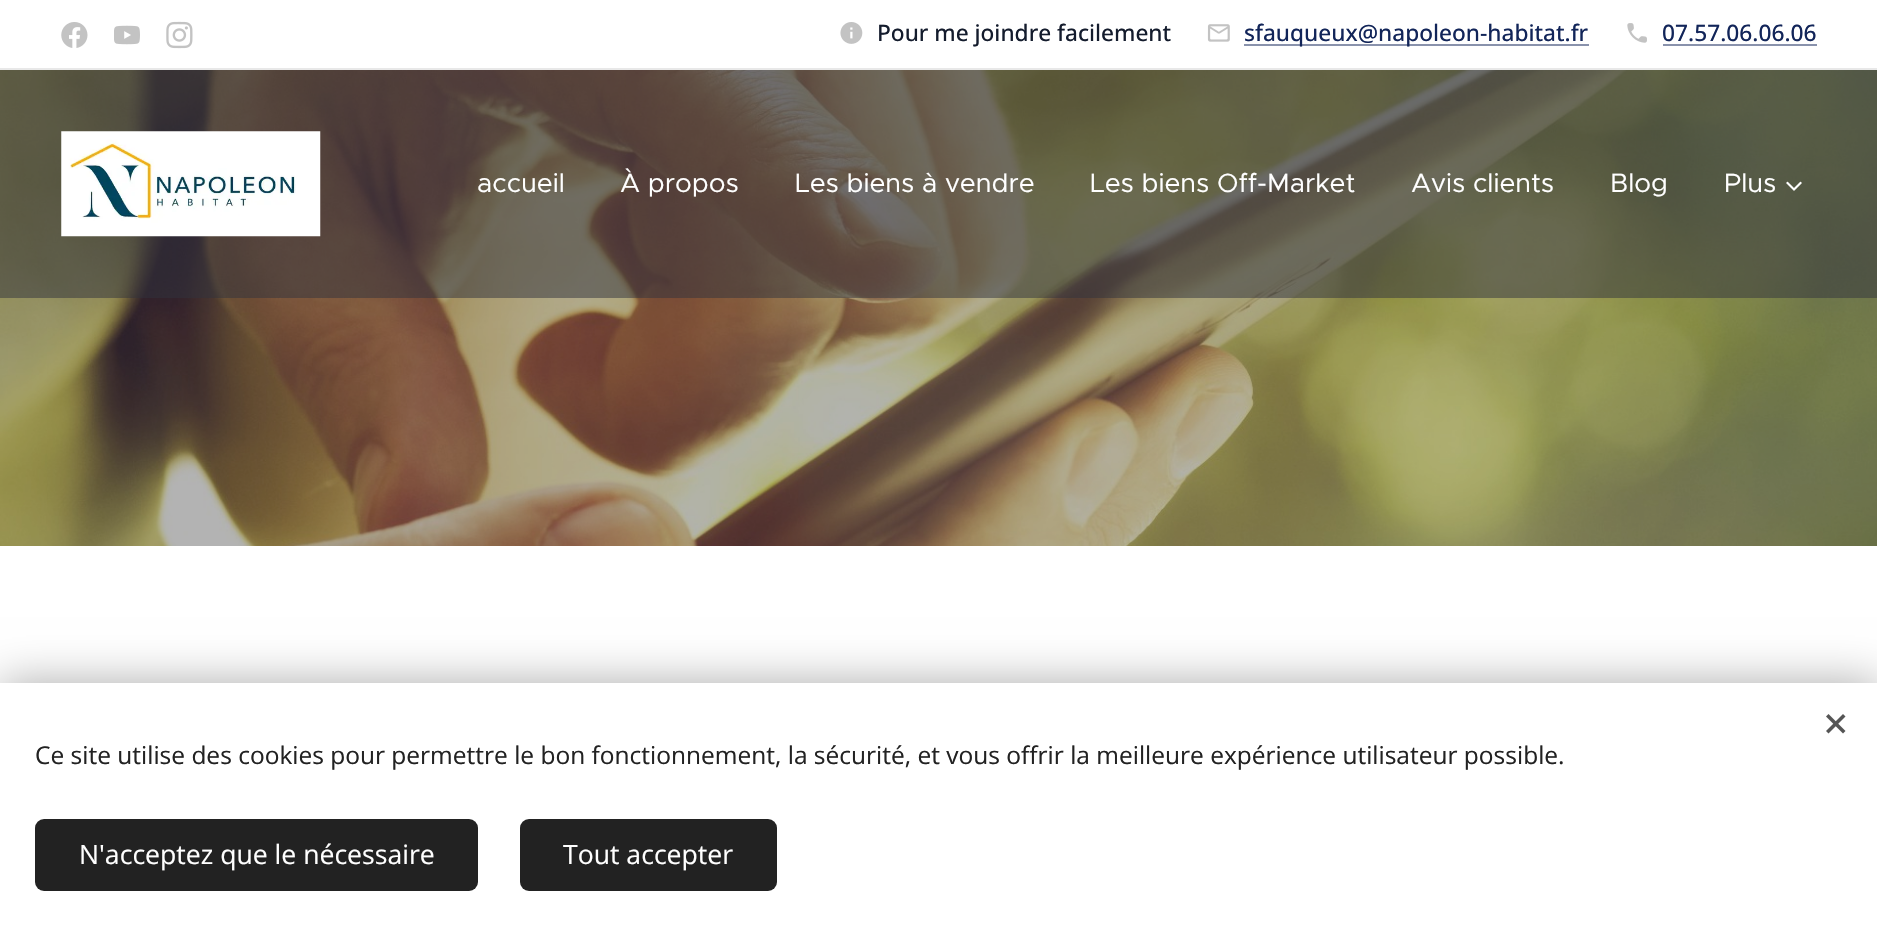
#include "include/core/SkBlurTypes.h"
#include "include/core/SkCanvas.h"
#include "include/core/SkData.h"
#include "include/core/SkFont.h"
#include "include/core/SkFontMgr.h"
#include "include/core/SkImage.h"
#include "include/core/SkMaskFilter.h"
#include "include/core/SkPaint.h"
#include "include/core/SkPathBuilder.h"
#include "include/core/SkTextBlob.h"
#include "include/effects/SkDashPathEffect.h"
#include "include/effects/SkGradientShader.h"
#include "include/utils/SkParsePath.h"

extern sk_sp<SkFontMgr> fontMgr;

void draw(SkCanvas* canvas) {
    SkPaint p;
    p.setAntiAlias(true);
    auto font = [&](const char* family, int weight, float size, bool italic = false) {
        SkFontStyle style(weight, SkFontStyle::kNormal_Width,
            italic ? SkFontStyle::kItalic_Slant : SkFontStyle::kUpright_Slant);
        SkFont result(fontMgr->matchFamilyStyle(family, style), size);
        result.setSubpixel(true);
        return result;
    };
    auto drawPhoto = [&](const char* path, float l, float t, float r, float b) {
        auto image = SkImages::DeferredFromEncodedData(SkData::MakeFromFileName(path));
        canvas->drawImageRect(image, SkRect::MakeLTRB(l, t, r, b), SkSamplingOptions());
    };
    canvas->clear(0xFFFFFFFF);
    drawPhoto("media/1.png", 61, 22, 88, 48);
    drawPhoto("media/2.png", 114, 25, 140, 45);
    drawPhoto("media/3.png", 166, 21, 193, 49);
    drawPhoto("media/4.png", 840, 22, 863, 44);
    auto font1 = font("Open Sans", 500, 22.75f);
    p.setColor(0xFF141C2D);
    canvas->drawString("Pour me joindre facilement", 877, 41, font1, p);
    drawPhoto("media/5.png", 1207, 24, 1230, 42);
    p.setColor(0xFF8992AC);
    canvas->drawRect(SkRect::MakeLTRB(1244, 44, 1589, 46), p);
    p.setColor(0xFF122559);
    canvas->drawString("sfauqueux@napoleon-habitat.fr", 1244, 41, font1, p);
    drawPhoto("media/6.png", 1627, 23, 1647, 43);
    canvas->drawString("07.57.06.06.06", 1662, 41, font1, p);
    p.setColor(0xFF8992AC);
    canvas->drawRect(SkRect::MakeLTRB(1663, 44, 1817, 46), p);
    p.setColor(0xFFE8E8E8);
    canvas->drawRect(SkRect::MakeLTRB(0, 68, 1877, 70), p);
    drawPhoto("media/9.png", 0, 70, 1877, 546);
    p.setColor(0x8030323B);
    canvas->drawRect(SkRect::MakeLTRB(0, 70, 1877, 298), p);
    drawPhoto("media/7.png", 61, 131, 321, 237);
    auto font2 = font("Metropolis", 400, 26.6f);
    p.setColor(0xFFFFFFFF);
    {
        const struct { const char* s; float x, y; } items[] = {
            {"accueil", 477, 192},
            {"À propos", 620, 192},
            {"Les biens à vendre", 795, 192},
            {"Les biens Off-Market", 1090, 192},
            {"Avis clients", 1411, 192},
            {"Blog", 1610, 192},
            {"Plus", 1724, 192},
        };
        for (auto [s, x, y] : items) {
            canvas->drawString(s, x, y, font2, p);
        }
    }
    drawPhoto("media/8.png", 1786, 181, 1802, 191);
    p.setColor(0x54000000);
    p.setMaskFilter(SkMaskFilter::MakeBlur(kNormal_SkBlurStyle, 22));
    canvas->drawRect(SkRect::MakeLTRB(0, 683, 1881, 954), p);
    p.setMaskFilter(nullptr);
    p.setColor(0xFFFFFFFF);
    canvas->drawRect(SkRect::MakeLTRB(0, 683, 1877, 949), p);
    p.setColor(0xFF555555);
    canvas->drawPath(SkPathBuilder().moveTo(1826, 731).lineTo(1843, 714).lineTo(1845.5f, 716.5f).lineTo(1828.5f, 733.5f).close().detach(), p);
    canvas->drawPath(SkPathBuilder().moveTo(1828.5f, 714).lineTo(1845.5f, 731).lineTo(1843, 733.5f).lineTo(1826, 716.5f).close().detach(), p);
    auto font3 = font("Open Sans", 400, 24.5f);
    p.setColor(0xFF222222);
    canvas->drawString("Ce site utilise des cookies pour permettre le bon fonctionnement, la sécurité, et vous offrir la meilleure expérience utilisateur possible.", 35, 764, font3, p);
    canvas->drawRoundRect(SkRect::MakeLTRB(35, 819, 478, 891), 9, 9, p);
    auto font4 = font("Open Sans", 400, 26.6f);
    p.setColor(0xFFFFFFFF);
    canvas->drawString("N'acceptez que le nécessaire", 79, 864, font4, p);
    p.setColor(0xFF222222);
    canvas->drawRoundRect(SkRect::MakeLTRB(520, 819, 777, 891), 9, 9, p);
    p.setColor(0xFFFFFFFF);
    canvas->drawString("Tout accepter", 563, 864, font4, p);
}
